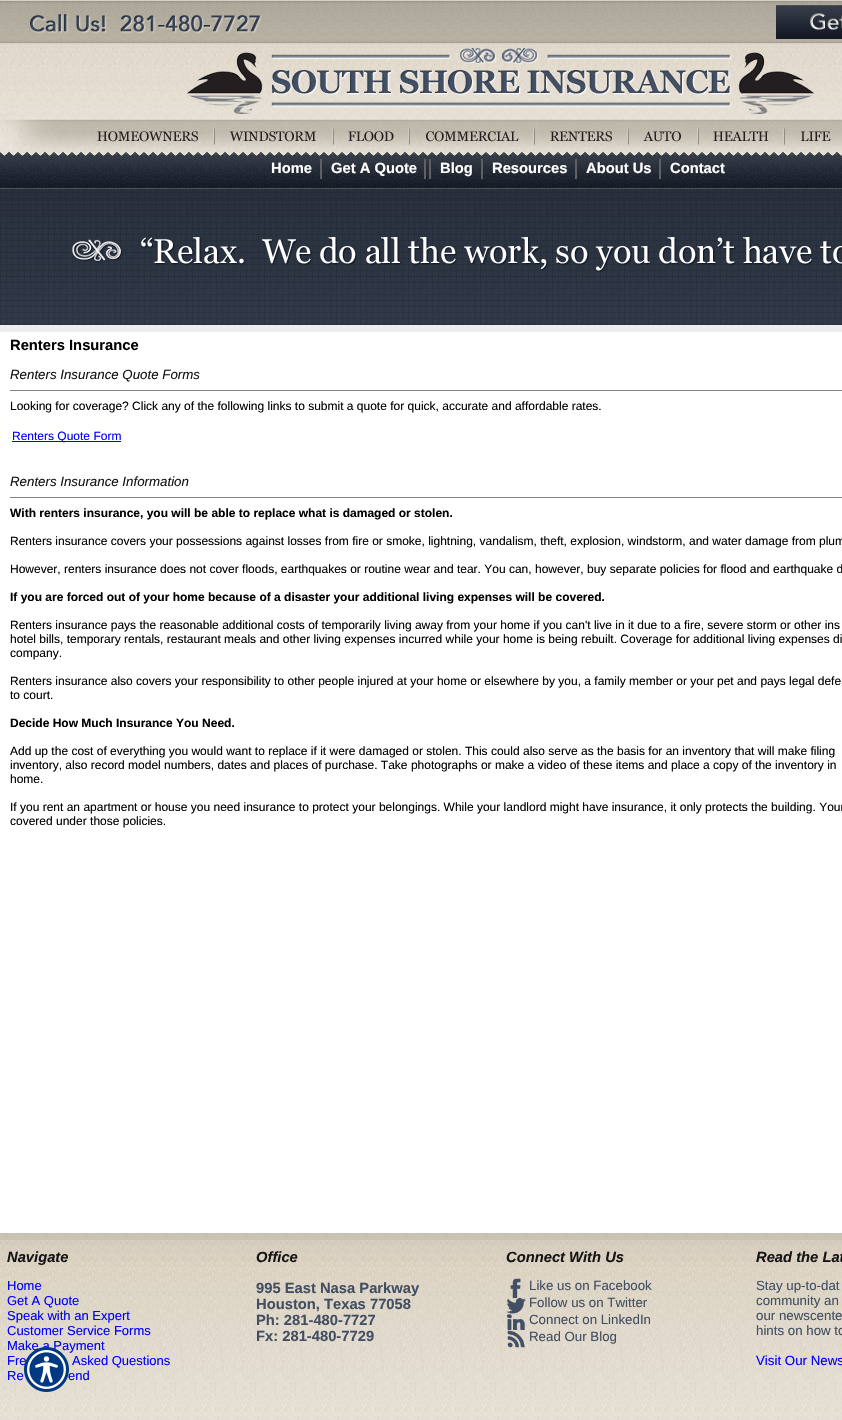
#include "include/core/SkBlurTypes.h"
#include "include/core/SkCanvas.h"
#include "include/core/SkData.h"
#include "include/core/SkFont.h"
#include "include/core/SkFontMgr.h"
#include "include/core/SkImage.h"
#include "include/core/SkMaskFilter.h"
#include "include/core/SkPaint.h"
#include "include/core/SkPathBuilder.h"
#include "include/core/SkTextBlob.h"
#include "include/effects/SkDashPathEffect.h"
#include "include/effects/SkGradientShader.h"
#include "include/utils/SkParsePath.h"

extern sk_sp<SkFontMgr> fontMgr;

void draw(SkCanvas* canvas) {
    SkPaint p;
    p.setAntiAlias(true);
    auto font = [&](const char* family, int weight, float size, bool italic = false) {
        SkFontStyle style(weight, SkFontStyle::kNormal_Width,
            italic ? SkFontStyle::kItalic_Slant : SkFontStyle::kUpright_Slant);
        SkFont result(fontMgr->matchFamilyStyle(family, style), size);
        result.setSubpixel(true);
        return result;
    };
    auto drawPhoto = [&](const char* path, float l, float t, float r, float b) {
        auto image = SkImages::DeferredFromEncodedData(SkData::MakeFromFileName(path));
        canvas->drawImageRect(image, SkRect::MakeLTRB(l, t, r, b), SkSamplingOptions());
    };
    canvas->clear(0xFFEEEEEE);
    drawPhoto("media/1.png", 0, 0, 842, 325);
    drawPhoto("media/2.png", 0, 5, 842, 155);
    auto font1 = font("Liberation Sans", 700, 14.75f);
    p.setColor(0xFFFFFFFF);
    canvas->drawString("Home", 271, 173, font1, p);
    p.setColor(0xFF616161);
    canvas->drawRect(SkRect::MakeLTRB(320, 159, 322, 179), p);
    p.setColor(0xFFFFFFFF);
    canvas->drawString("Get A Quote", 331, 173, font1, p);
    p.setColor(0xFF616161);
    canvas->drawRect(SkRect::MakeLTRB(424, 159, 426, 179), p);
    canvas->drawRect(SkRect::MakeLTRB(429, 159, 431, 179), p);
    p.setColor(0xFFFFFFFF);
    canvas->drawString("Blog", 440, 173, font1, p);
    p.setColor(0xFF616161);
    canvas->drawRect(SkRect::MakeLTRB(481, 159, 483, 179), p);
    p.setColor(0xFFFFFFFF);
    canvas->drawString("Resources", 492, 173, font1, p);
    p.setColor(0xFF616161);
    canvas->drawRect(SkRect::MakeLTRB(575, 159, 577, 179), p);
    p.setColor(0xFFFFFFFF);
    canvas->drawString("About Us", 586, 173, font1, p);
    p.setColor(0xFF616161);
    canvas->drawRect(SkRect::MakeLTRB(659, 159, 661, 179), p);
    p.setColor(0xFFFFFFFF);
    canvas->drawString("Contact", 670, 173, font1, p);
    drawPhoto("media/3.png", 72, 237, 842, 273);
    canvas->drawRect(SkRect::MakeLTRB(0, 332, 842, 1232), p);
    p.setColor(0xFF000000);
    canvas->drawString("Renters Insurance", 10, 350, font1, p);
    p.setColor(0xFF808080);
    canvas->drawRect(SkRect::MakeLTRB(10, 390, 842, 391), p);
    auto font2 = font("Liberation Sans", 400, 13.3f, true);
    p.setColor(0xFF151515);
    canvas->drawString("Renters Insurance Quote Forms", 10, 379, font2, p);
    auto font3 = font("Liberation Sans", 400, 12);
    p.setColor(0xFF000000);
    canvas->drawString("Looking for coverage? Click any of the following links to submit a quote for quick, accurate and affordable rates.", 10, 410, font3, p);
    p.setColor(0xFF0000FF);
    canvas->drawRect(SkRect::MakeLTRB(12, 441, 121, 442), p);
    canvas->drawString("Renters Quote Form", 12, 440, font3, p);
    p.setColor(0xFF808080);
    canvas->drawRect(SkRect::MakeLTRB(10, 497, 842, 498), p);
    p.setColor(0xFF151515);
    canvas->drawString("Renters Insurance Information", 10, 486, font2, p);
    auto font4 = font("Liberation Sans", 700, 12);
    p.setColor(0xFF000000);
    canvas->drawString("With renters insurance, you will be able to replace what is damaged or stolen.", 10, 517, font4, p);
    canvas->drawString("Renters insurance covers your possessions against losses from fire or smoke, lightning, vandalism, theft, explosion, windstorm, and water damage from plum", 10, 545, font3, p);
    canvas->drawString("However, renters insurance does not cover floods, earthquakes or routine wear and tear. You can, however, buy separate policies for flood and earthquake d", 10, 573, font3, p);
    canvas->drawString("If you are forced out of your home because of a disaster your additional living expenses will be covered.", 10, 601, font4, p);
    {
        const struct { const char* s; float x, y; } items[] = {
            {"Renters insurance pays the reasonable additional costs of temporarily living away from your home if you can't live in it due to a fire, severe storm or other ins", 10, 629},
            {"hotel bills, temporary rentals, restaurant meals and other living expenses incurred while your home is being rebuilt. Coverage for additional living expenses di", 10, 643},
            {"company.", 10, 657},
            {"Renters insurance also covers your responsibility to other people injured at your home or elsewhere by you, a family member or your pet and pays legal defe", 10, 685},
            {"to court.", 10, 699},
        };
        for (auto [s, x, y] : items) {
            canvas->drawString(s, x, y, font3, p);
        }
    }
    canvas->drawString("Decide How Much Insurance You Need.", 10, 727, font4, p);
    {
        const struct { const char* s; float x, y; } items[] = {
            {"Add up the cost of everything you would want to replace if it were damaged or stolen. This could also serve as the basis for an inventory that will make filing", 10, 755},
            {"inventory, also record model numbers, dates and places of purchase. Take photographs or make a video of these items and place a copy of the inventory in", 10, 769},
            {"home.", 10, 783},
            {"If you rent an apartment or house you need insurance to protect your belongings. While your landlord might have insurance, it only protects the building. Your", 10, 811},
            {"covered under those policies.", 10, 825},
        };
        for (auto [s, x, y] : items) {
            canvas->drawString(s, x, y, font3, p);
        }
    }
    drawPhoto("media/4.png", 0, 1232, 842, 1420);
    auto font5 = font("Liberation Sans", 700, 14.75f, true);
    p.setColor(0xFF151515);
    canvas->drawString("Navigate", 7, 1262, font5, p);
    auto font6 = font("Liberation Sans", 400, 13);
    p.setColor(0xFF0000FF);
    {
        const struct { const char* s; float x, y; } items[] = {
            {"Home", 7, 1290},
            {"Get A Quote", 7, 1305},
            {"Speak with an Expert", 7, 1320},
            {"Customer Service Forms", 7, 1335},
            {"Make a Payment", 7, 1350},
            {"Fre", 7, 1365},
            {"Asked Questions", 72, 1365},
            {"Re", 7, 1380},
            {"end", 68, 1380},
        };
        for (auto [s, x, y] : items) {
            canvas->drawString(s, x, y, font6, p);
        }
    }
    p.setColor(0xFF151515);
    canvas->drawString("Office", 256, 1262, font5, p);
    p.setColor(0xFF424E62);
    {
        const struct { const char* s; float x, y; } items[] = {
            {"995 East Nasa Parkway", 256, 1293},
            {"Houston, Texas 77058", 256, 1309},
            {"Ph: 281-480-7727", 256, 1325},
            {"Fx: 281-480-7729", 256, 1341},
        };
        for (auto [s, x, y] : items) {
            canvas->drawString(s, x, y, font1, p);
        }
    }
    p.setColor(0xFF151515);
    canvas->drawString("Connect With Us", 506, 1262, font5, p);
    drawPhoto("media/5.png", 510, 1278, 521, 1298);
    auto font7 = font("Liberation Sans", 400, 13.3f);
    p.setColor(0xFF424E62);
    canvas->drawString("Like us on Facebook", 529, 1290, font7, p);
    drawPhoto("media/6.png", 506, 1298, 526, 1314);
    canvas->drawString("Follow us on Twitter", 529, 1307, font7, p);
    drawPhoto("media/7.png", 506, 1314, 525, 1330);
    canvas->drawString("Connect on LinkedIn", 529, 1324, font7, p);
    drawPhoto("media/8.png", 507, 1330, 525, 1348);
    canvas->drawString("Read Our Blog", 529, 1341, font7, p);
    p.setColor(0xFF151515);
    canvas->drawString("Read the Lat", 756, 1262, font5, p);
    p.setColor(0xFF424E62);
    {
        const struct { const char* s; float x, y; } items[] = {
            {"Stay up-to-dat", 756, 1290},
            {"community an", 756, 1305},
            {"our newscente", 756, 1320},
            {"hints on how to", 756, 1335},
        };
        for (auto [s, x, y] : items) {
            canvas->drawString(s, x, y, font7, p);
        }
    }
    p.setColor(0xFF0000FF);
    canvas->drawString("Visit Our News", 756, 1365, font7, p);
    drawPhoto("media/9.png", 24, 1347, 69, 1392);
}
